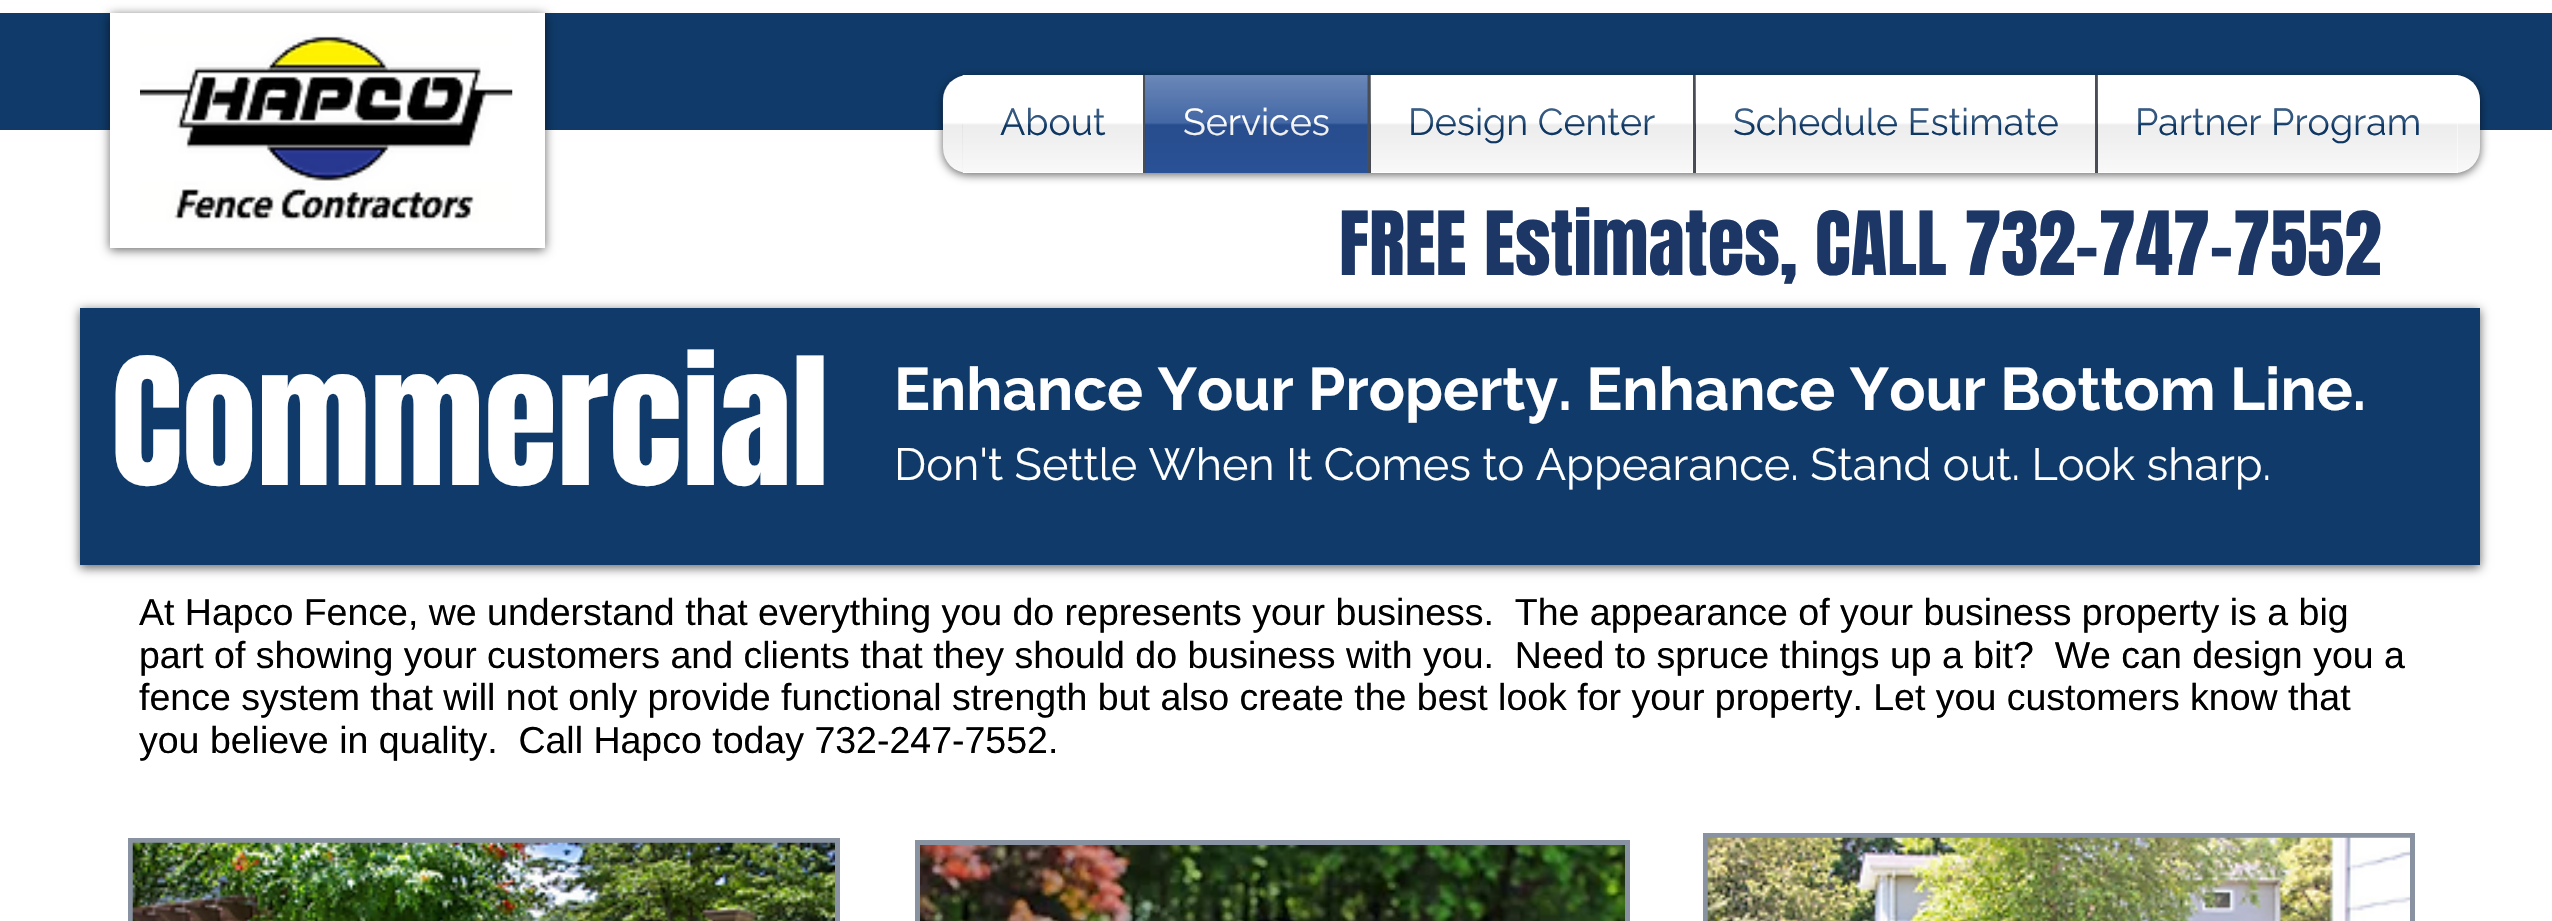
#include "include/core/SkBlurTypes.h"
#include "include/core/SkCanvas.h"
#include "include/core/SkData.h"
#include "include/core/SkFont.h"
#include "include/core/SkFontMgr.h"
#include "include/core/SkImage.h"
#include "include/core/SkMaskFilter.h"
#include "include/core/SkPaint.h"
#include "include/core/SkPathBuilder.h"
#include "include/core/SkTextBlob.h"
#include "include/effects/SkDashPathEffect.h"
#include "include/effects/SkGradientShader.h"
#include "include/utils/SkParsePath.h"

extern sk_sp<SkFontMgr> fontMgr;

void draw(SkCanvas* canvas) {
    SkPaint p;
    p.setAntiAlias(true);
    auto font = [&](const char* family, int weight, float size, bool italic = false) {
        SkFontStyle style(weight, SkFontStyle::kNormal_Width,
            italic ? SkFontStyle::kItalic_Slant : SkFontStyle::kUpright_Slant);
        SkFont result(fontMgr->matchFamilyStyle(family, style), size);
        result.setSubpixel(true);
        return result;
    };
    auto drawPhoto = [&](const char* path, float l, float t, float r, float b) {
        auto image = SkImages::DeferredFromEncodedData(SkData::MakeFromFileName(path));
        canvas->drawImageRect(image, SkRect::MakeLTRB(l, t, r, b), SkSamplingOptions());
    };
    canvas->clear(0xFFFFFFFF);
    p.setColor(0xFF0F3A69);
    canvas->drawRect(SkRect::MakeLTRB(0, 13, 2552, 130), p);
    p.setColor(0x99000000);
    p.setMaskFilter(SkMaskFilter::MakeBlur(kNormal_SkBlurStyle, 5));
    canvas->drawRect(SkRect::MakeLTRB(110, 15, 545, 250), p);
    p.setMaskFilter(nullptr);
    p.setColor(0xFFFFFFFF);
    canvas->drawRect(SkRect::MakeLTRB(110, 13, 545, 248), p);
    drawPhoto("media/1.png", 140, 33, 513, 222);
    p.setColor(0x99000000);
    p.setMaskFilter(SkMaskFilter::MakeBlur(kNormal_SkBlurStyle, 5));
    canvas->drawRoundRect(SkRect::MakeLTRB(943, 78, 2480, 175), 25, 25, p);
    p.setMaskFilter(nullptr);
    p.setColor(0xFFFFFFFF);
    canvas->drawRoundRect(SkRect::MakeLTRB(943, 75, 2480, 173), 25, 25, p);
    drawPhoto("media/2.png", 942, 75, 2480, 172);
    canvas->drawRect(SkRect::MakeLTRB(963, 75, 1143, 173), p);
    auto font1 = font("Raleway", 400, 37.5f);
    p.setColor(0xFF0F3A69);
    canvas->drawString("About", 1000, 135, font1, p);
    drawPhoto("media/3.png", 962, 75, 1143, 172);
    p.setColor(0xFF2A5399);
    canvas->drawRect(SkRect::MakeLTRB(1146, 75, 1368, 173), p);
    p.setColor(0xFF484D56);
    canvas->drawRect(SkRect::MakeLTRB(1143, 75, 1146, 173), p);
    p.setColor(0xFFFFFFFF);
    canvas->drawString("Services", 1183, 135, font1, p);
    drawPhoto("media/4.png", 1145, 75, 1368, 172);
    canvas->drawRect(SkRect::MakeLTRB(1371, 123, 1693, 172), p);
    p.setColor(0xFF484D56);
    canvas->drawRect(SkRect::MakeLTRB(1368, 75, 1371, 173), p);
    p.setColor(0xFF0F3A69);
    canvas->drawString("Design Center", 1408, 135, font1, p);
    drawPhoto("media/5.png", 1370, 75, 1693, 172);
    p.setColor(0xFFFFFFFF);
    canvas->drawRect(SkRect::MakeLTRB(1696, 123, 2095, 172), p);
    p.setColor(0xFF484D56);
    canvas->drawRect(SkRect::MakeLTRB(1693, 75, 1696, 173), p);
    p.setColor(0xFF0F3A69);
    canvas->drawString("Schedule Estimate", 1733, 135, font1, p);
    drawPhoto("media/6.png", 1695, 75, 2095, 172);
    p.setColor(0xFFFFFFFF);
    canvas->drawRect(SkRect::MakeLTRB(2098, 75, 2458, 173), p);
    p.setColor(0xFF484D56);
    canvas->drawRect(SkRect::MakeLTRB(2095, 75, 2098, 173), p);
    p.setColor(0xFF0F3A69);
    canvas->drawString("Partner Program", 2135, 135, font1, p);
    drawPhoto("media/7.png", 2097, 75, 2458, 172);
    auto font2 = font("Anton", 400, 75);
    p.setColor(0xFF1C3766);
    canvas->drawString("FREE Estimates, CALL 732-747-7552", 1339, 275, font2, p);
    p.setColor(0x99000000);
    p.setMaskFilter(SkMaskFilter::MakeBlur(kNormal_SkBlurStyle, 5));
    canvas->drawRect(SkRect::MakeLTRB(80, 310, 2480, 568), p);
    p.setMaskFilter(nullptr);
    p.setColor(0xFF0F3A69);
    canvas->drawRect(SkRect::MakeLTRB(80, 308, 2480, 565), p);
    auto font3 = font("Anton", 400, 150);
    p.setColor(0xFFFFFFFF);
    canvas->drawString("Commercial", 111, 485, font3, p);
    auto font4 = font("Raleway", 700, 60);
    canvas->drawString("Enhance Your Property. Enhance Your Bottom Line.", 894, 410, font4, p);
    auto font5 = font("Raleway", 400, 45);
    canvas->drawString("Don't Settle When It Comes to Appearance. Stand out. Look sharp.", 894, 480, font5, p);
    auto font6 = font("Liberation Sans", 400, 37.5f);
    p.setColor(0xFF000000);
    {
        const struct { const char* s; float x, y; } items[] = {
            {"At Hapco Fence, we understand that everything you do represents your business.  The appearance of your business property is a big", 139, 625},
            {"part of showing your customers and clients that they should do business with you.  Need to spruce things up a bit?  We can design you a", 139, 668},
            {"fence system that will not only provide functional strength but also create the best look for your property. Let you customers know that", 139, 710},
            {"you believe in quality.  Call Hapco today 732-247-7552.", 139, 753},
        };
        for (auto [s, x, y] : items) {
            canvas->drawString(s, x, y, font6, p);
        }
    }
    p.setColor(0xFF8892A1);
    canvas->drawRect(SkRect::MakeLTRB(128, 838, 840, 921), p);
    drawPhoto("media/8.png", 132, 842, 835, 921);
    canvas->drawRect(SkRect::MakeLTRB(915, 840, 1630, 921), p);
    drawPhoto("media/9.png", 920, 845, 1625, 921);
    canvas->drawRect(SkRect::MakeLTRB(1703, 833, 2415, 921), p);
    drawPhoto("media/10.png", 1707, 837, 2410, 921);
}
